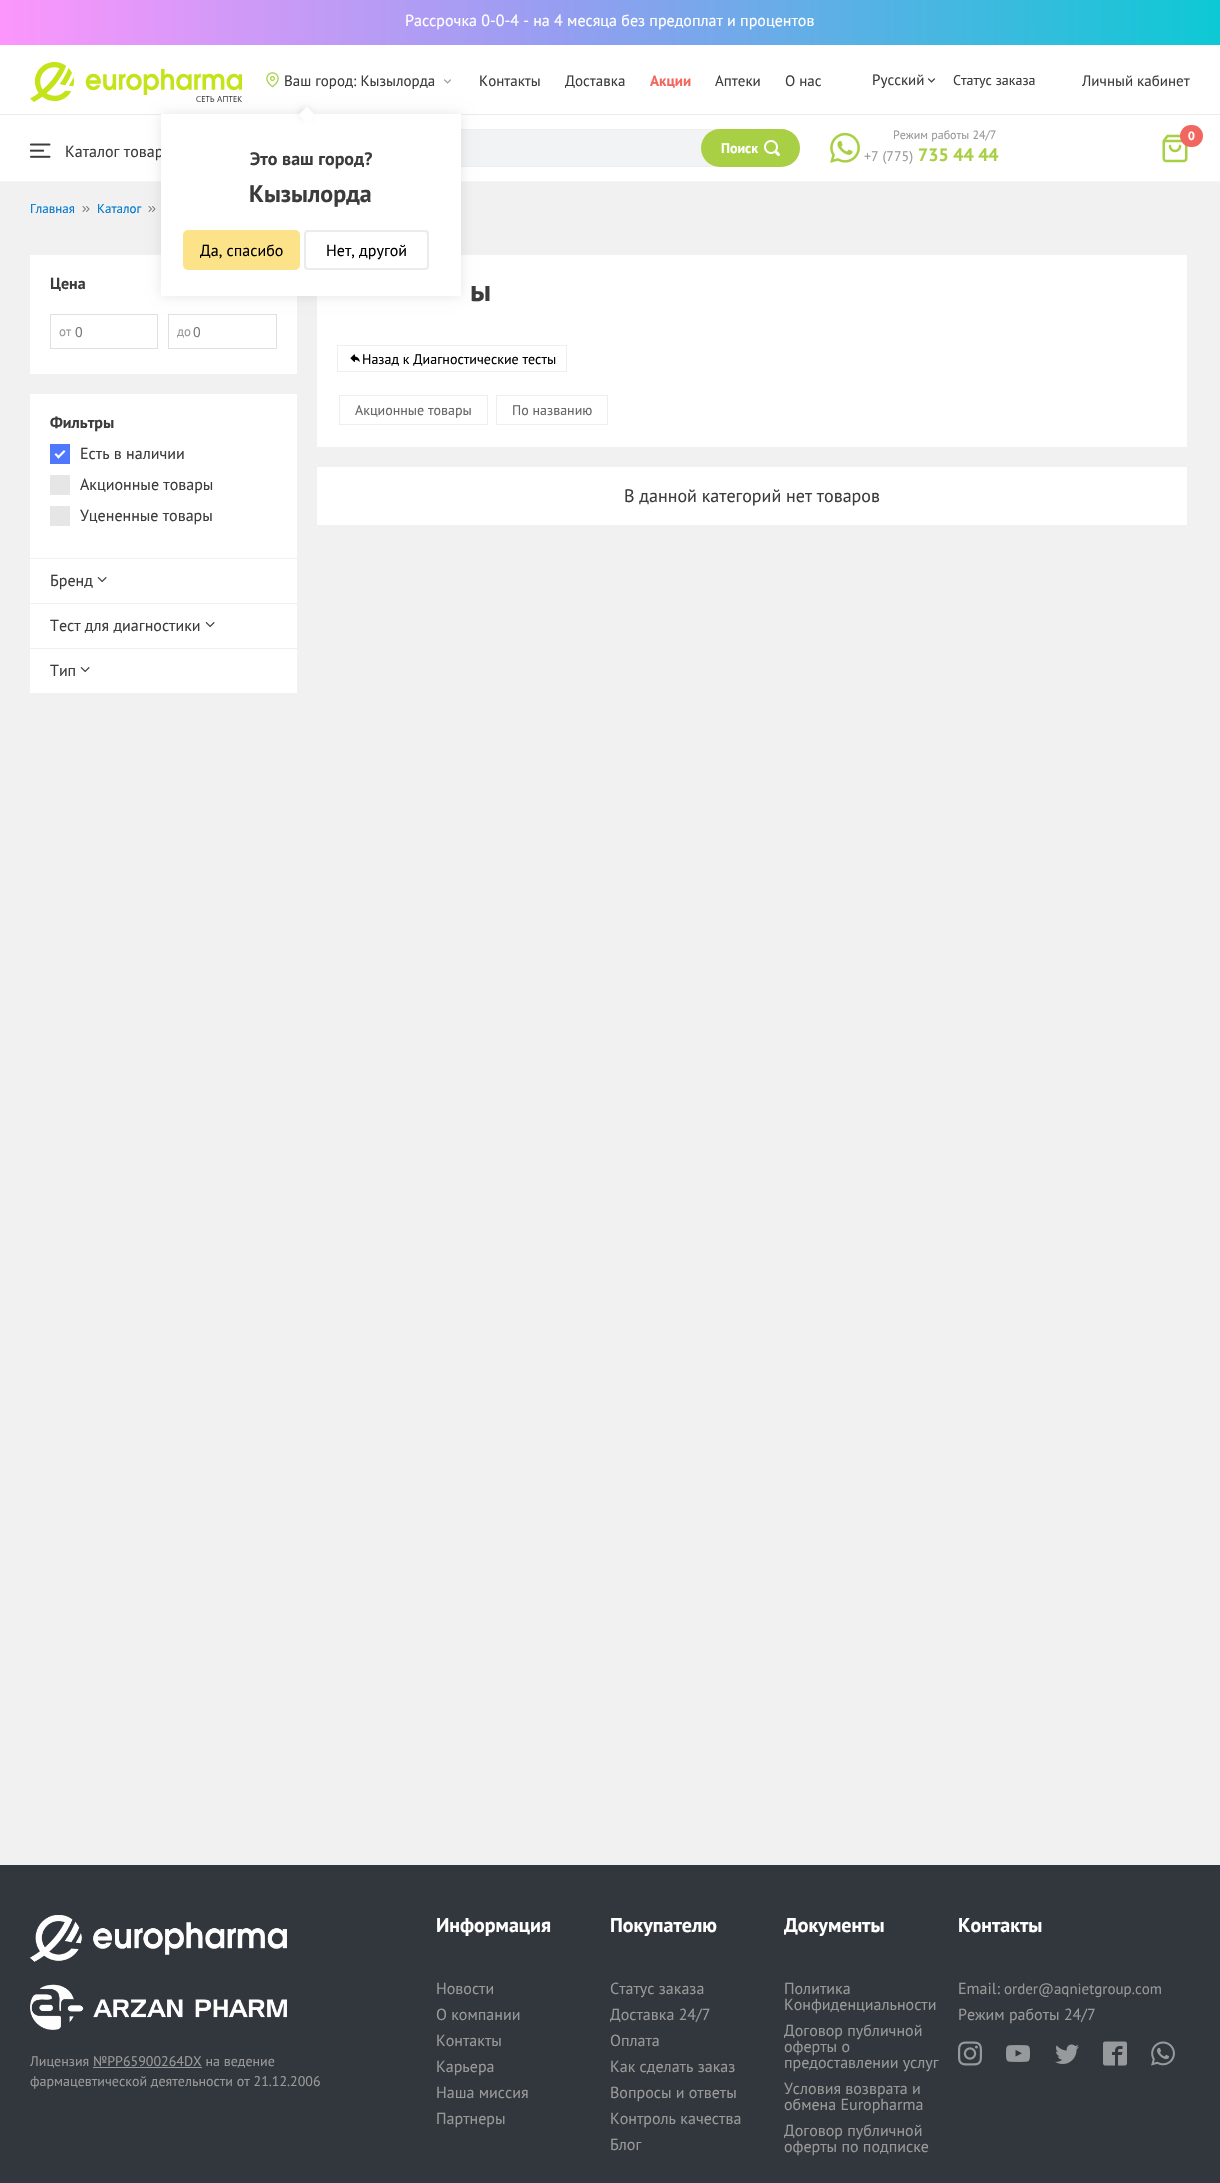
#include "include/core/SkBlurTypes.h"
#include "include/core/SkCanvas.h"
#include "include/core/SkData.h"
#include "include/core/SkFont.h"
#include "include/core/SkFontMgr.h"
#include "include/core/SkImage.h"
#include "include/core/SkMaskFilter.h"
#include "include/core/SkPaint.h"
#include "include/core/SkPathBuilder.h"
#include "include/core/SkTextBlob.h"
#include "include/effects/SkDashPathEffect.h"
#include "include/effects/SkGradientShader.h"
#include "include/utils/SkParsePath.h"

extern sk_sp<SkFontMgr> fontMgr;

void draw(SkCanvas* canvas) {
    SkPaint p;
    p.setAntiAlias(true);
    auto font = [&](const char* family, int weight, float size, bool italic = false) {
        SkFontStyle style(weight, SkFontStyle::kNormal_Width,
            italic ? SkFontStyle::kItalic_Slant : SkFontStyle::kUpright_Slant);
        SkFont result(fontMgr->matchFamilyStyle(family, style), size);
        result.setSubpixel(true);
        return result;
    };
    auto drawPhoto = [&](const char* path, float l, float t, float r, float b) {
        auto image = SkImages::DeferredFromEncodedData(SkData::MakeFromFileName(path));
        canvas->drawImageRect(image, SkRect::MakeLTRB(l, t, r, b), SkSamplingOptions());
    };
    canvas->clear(0xFFF1F1F1);
    {
        const SkColor colors[] = {0xFFFC96FC, 0xFF959EF1, 0xFF0DC9D5};
        const float stops[] = {0, 0.46f, 1};
        const SkPoint ends[] = {{0, 23}, {1220, 22}};
        p.setShader(SkGradientShader::MakeLinear(ends, colors, stops, 3, SkTileMode::kClamp));
        p.setAlpha(255);
    }
    canvas->drawRect(SkRect::MakeLTRB(0, 0, 1220, 45), p);
    auto font1 = font("PT Sans", 400, 16);
    p.setShader(nullptr);
    p.setColor(0xFFFFFFFF);
    canvas->drawString("Рассрочка 0-0-4 - на 4 месяца без предоплат и процентов", 405, 26, font1, p);
    canvas->drawRect(SkRect::MakeLTRB(0, 45, 1220, 181), p);
    p.setColor(0xFFEBEBEB);
    canvas->drawRect(SkRect::MakeLTRB(0, 114, 1220, 115), p);
    drawPhoto("media/1.png", 30, 62, 242, 102);
    drawPhoto("media/2.png", 266, 72, 279, 88);
    auto font2 = font("PT Sans", 400, 15);
    p.setColor(0xFF3C3C3C);
    canvas->drawString("Ваш город: Кызылорда", 284, 86, font2, p);
    drawPhoto("media/3.png", 444, 79, 451, 84);
    p.setColor(0xFFF6F6F6);
    canvas->drawRect(SkRect::MakeLTRB(0, 181, 1220, 182), p);
    p.setColor(0xFFF1F3F4);
    canvas->drawRoundRect(SkRect::MakeLTRB(260.5f, 129.5f, 799.5f, 166.5f), 18.5f, 18.5f, p);
    p.setStyle(SkPaint::kStroke_Style);
    p.setStrokeWidth(1);
    p.setColor(0xFFEEEEEE);
    canvas->drawRoundRect(SkRect::MakeLTRB(260.5f, 129.5f, 799.5f, 166.5f), 18.5f, 18.5f, p);
    drawPhoto("media/9.png", 148, 206, 156, 212);
    p.setStyle(SkPaint::kFill_Style);
    p.setColor(0xFFFFFFFF);
    canvas->drawRect(SkRect::MakeLTRB(30, 255, 297, 374), p);
    p.setStyle(SkPaint::kStroke_Style);
    p.setColor(0xFFE0E0E0);
    canvas->drawRect(SkRect::MakeLTRB(50.5f, 314.5f, 157.5f, 348.5f), p);
    canvas->drawRect(SkRect::MakeLTRB(168.5f, 314.5f, 276.5f, 348.5f), p);
    p.setStyle(SkPaint::kFill_Style);
    p.setColor(0xFFFFFFFF);
    canvas->drawRect(SkRect::MakeLTRB(317, 255, 1187, 447), p);
    p.setColor(0x1A000000);
    p.setMaskFilter(SkMaskFilter::MakeBlur(kNormal_SkBlurStyle, 6));
    canvas->drawRect(SkRect::MakeLTRB(161, 114, 461, 296), p);
    p.setMaskFilter(nullptr);
    p.setColor(0xFF3C3C3C);
    canvas->drawString("Каталог товар", 65, 157, font1, p);
    p.setColor(0xFFFFFFFF);
    canvas->drawRect(SkRect::MakeLTRB(161, 114, 461, 296), p);
    p.setColor(0x0F000000);
    p.setMaskFilter(SkMaskFilter::MakeBlur(kNormal_SkBlurStyle, 2.5f));
    canvas->drawRect(SkRect::MakeLTRB(299, 107, 311, 119), p);
    p.setMaskFilter(nullptr);
    p.setColor(0xFFFFFFFF);
    canvas->drawPath(SkPathBuilder().moveTo(307, 106.5f).lineTo(315, 115).lineTo(307, 123.5f).lineTo(298.5f, 115).close().detach(), p);
    auto font3 = font("PT Sans", 700, 18);
    p.setColor(0xFF3C3C3C);
    canvas->drawString("Это ваш город?", 250, 165, font3, p);
    auto font4 = font("PT Sans", 700, 24);
    canvas->drawString("Кызылорда", 249, 202, font4, p);
    p.setColor(0xFFFCE389);
    canvas->drawRoundRect(SkRect::MakeLTRB(184, 231, 299, 269), 4, 4, p);
    p.setStyle(SkPaint::kStroke_Style);
    p.setStrokeWidth(2);
    canvas->drawRoundRect(SkRect::MakeLTRB(184, 231, 299, 269), 4, 4, p);
    p.setStyle(SkPaint::kFill_Style);
    p.setColor(0xFF000000);
    canvas->drawString("Да, спасибо", 200, 256, font1, p);
    p.setStyle(SkPaint::kStroke_Style);
    p.setColor(0xFFEBEBEB);
    canvas->drawRoundRect(SkRect::MakeLTRB(305, 231, 428, 269), 3, 3, p);
    p.setStyle(SkPaint::kFill_Style);
    p.setColor(0xFF000000);
    canvas->drawString("Нет, другой", 326, 256, font1, p);
    p.setColor(0xFF3C3C3C);
    canvas->drawString("Контакты", 479, 86, font2, p);
    canvas->drawString("Доставка", 565, 86, font2, p);
    auto font5 = font("PT Sans", 700, 15);
    p.setColor(0xFFF1675E);
    canvas->drawString("Акции", 650, 86, font5, p);
    p.setColor(0xFF3C3C3C);
    {
        const struct { const char* s; float x, y; } items[] = {
            {"Аптеки", 715, 86},
            {"О нас", 785, 86},
            {"Русский", 872, 85},
        };
        for (auto [s, x, y] : items) {
            canvas->drawString(s, x, y, font2, p);
        }
    }
    drawPhoto("media/4.png", 927, 78, 936, 83);
    auto font6 = font("PT Sans", 400, 14);
    canvas->drawString("Статус заказа", 953, 85, font6, p);
    canvas->drawString("Личный кабинет", 1082, 86, font2, p);
    drawPhoto("media/5.png", 830, 132, 860, 163);
    auto font7 = font("PT Sans", 400, 12);
    p.setColor(0xFF999999);
    canvas->drawString("Режим работы 24/7", 893, 139, font7, p);
    canvas->drawString("+7 (775)", 864, 161, font6, p);
    p.setColor(0xFFA9CF44);
    canvas->drawString("735 44 44", 918, 161, font3, p);
    drawPhoto("media/6.png", 1162, 134, 1188, 163);
    p.setColor(0xFFF1665E);
    canvas->drawRoundRect(SkRect::MakeLTRB(1180, 125, 1203, 147), 11, 11, p);
    auto font8 = font("PT Sans", 700, 12);
    p.setColor(0xFFFFFFFF);
    canvas->drawString("0", 1188, 140, font8, p);
    drawPhoto("media/7.png", 29, 143, 51, 158);
    p.setColor(0xFFA9CF44);
    canvas->drawRoundRect(SkRect::MakeLTRB(701, 129, 800, 167), 19, 19, p);
    auto font9 = font("PT Sans", 700, 14);
    p.setColor(0xFFFFFFFF);
    canvas->drawString("Поиск", 721, 153, font9, p);
    drawPhoto("media/8.png", 764, 140, 780, 156);
    auto font10 = font("PT Sans", 400, 13);
    p.setColor(0xFF0077CC);
    canvas->drawString("Главная", 30, 213, font10, p);
    drawPhoto("media/9.png", 82, 206, 90, 212);
    canvas->drawString("Каталог", 97, 213, font10, p);
    auto font11 = font("PT Sans", 700, 16);
    p.setColor(0xFF3C3C3C);
    canvas->drawString("Цена", 50, 289, font11, p);
    p.setColor(0xFF999999);
    canvas->drawString("от", 59, 336, font10, p);
    p.setColor(0xFF757575);
    canvas->drawString("0", 75, 337, font6, p);
    p.setColor(0xFF999999);
    canvas->drawString("до", 177, 336, font10, p);
    p.setColor(0xFF757575);
    canvas->drawString("0", 193, 337, font6, p);
    p.setColor(0xFFFFFFFF);
    canvas->drawRect(SkRect::MakeLTRB(30, 394, 297, 693), p);
    p.setColor(0xFF3C3C3C);
    canvas->drawString("Фильтры", 50, 428, font11, p);
    p.setColor(0xFF4F78FE);
    canvas->drawRect(SkRect::MakeLTRB(50, 444, 70, 464), p);
    p.setColor(0xFFFFFFFF);
    canvas->drawPath(SkPathBuilder().moveTo(64, 450).lineTo(65.5f, 451.5f).lineTo(58.5f, 458.5f).lineTo(57, 457).close().detach(), p);
    canvas->drawPath(SkPathBuilder().moveTo(56, 453).lineTo(60, 457).lineTo(58.5f, 458.5f).lineTo(54.5f, 454.5f).close().detach(), p);
    p.setColor(0xFF3C3C3C);
    canvas->drawString("Есть в наличии", 80, 459, font1, p);
    p.setColor(0xFFE6E6E6);
    canvas->drawRect(SkRect::MakeLTRB(50, 475, 70, 495), p);
    p.setColor(0xFF3C3C3C);
    canvas->drawString("Акционные товары", 80, 490, font1, p);
    p.setColor(0xFFE6E6E6);
    canvas->drawRect(SkRect::MakeLTRB(50, 506, 70, 526), p);
    p.setColor(0xFF3C3C3C);
    canvas->drawString("Уцененные товары", 80, 521, font1, p);
    p.setColor(0xFFF0F0F0);
    canvas->drawRect(SkRect::MakeLTRB(30, 558, 297, 559), p);
    p.setColor(0xFF3C3C3C);
    canvas->drawString("Бренд", 50, 586, font1, p);
    drawPhoto("media/10.png", 97, 577, 107, 583);
    p.setColor(0xFFF0F0F0);
    canvas->drawRect(SkRect::MakeLTRB(30, 603, 297, 604), p);
    p.setColor(0xFF3C3C3C);
    canvas->drawString("Тест для диагностики", 50, 631, font1, p);
    drawPhoto("media/10.png", 205, 622, 215, 628);
    p.setColor(0xFFF0F0F0);
    canvas->drawRect(SkRect::MakeLTRB(30, 648, 297, 649), p);
    p.setColor(0xFF3C3C3C);
    canvas->drawString("Тип", 50, 676, font1, p);
    drawPhoto("media/10.png", 80, 667, 90, 673);
    auto font12 = font("PT Sans", 700, 30);
    canvas->drawString("ы", 470, 301, font12, p);
    p.setStyle(SkPaint::kStroke_Style);
    p.setStrokeWidth(1);
    p.setColor(0xFFEEEEEE);
    canvas->drawRect(SkRect::MakeLTRB(337.5f, 345.5f, 566.5f, 371.5f), p);
    drawPhoto("media/11.png", 350, 354, 360, 363);
    p.setStyle(SkPaint::kFill_Style);
    p.setColor(0xFF000000);
    canvas->drawString("Назад к Диагностические тесты", 362, 364, font6, p);
    p.setStyle(SkPaint::kStroke_Style);
    p.setColor(0xFFEEEEEE);
    canvas->drawRect(SkRect::MakeLTRB(339.5f, 395.5f, 487.5f, 424.5f), p);
    p.setStyle(SkPaint::kFill_Style);
    p.setColor(0xFF666666);
    canvas->drawString("Акционные товары", 355, 415, font6, p);
    p.setStyle(SkPaint::kStroke_Style);
    p.setColor(0xFFEEEEEE);
    canvas->drawRect(SkRect::MakeLTRB(496.5f, 395.5f, 607.5f, 424.5f), p);
    p.setStyle(SkPaint::kFill_Style);
    p.setColor(0xFF666666);
    canvas->drawString("По названию", 512, 415, font6, p);
    p.setColor(0xFFFFFFFF);
    canvas->drawRect(SkRect::MakeLTRB(317, 467, 1187, 525), p);
    auto font13 = font("PT Sans", 400, 18);
    p.setColor(0xFF3C3C3C);
    canvas->drawString("В данной категорий нет товаров", 624, 502, font13, p);
    p.setColor(0xFF31373C);
    canvas->drawRect(SkRect::MakeLTRB(0, 1865, 1220, 2183), p);
    auto font14 = font("PT Sans", 700, 20);
    p.setColor(0xFFFFFFFF);
    canvas->drawString("Информация", 436, 1932, font14, p);
    p.setColor(0xFF999999);
    {
        const struct { const char* s; float x, y; } items[] = {
            {"Новости", 436, 1994},
            {"О компании", 436, 2020},
            {"Контакты", 436, 2046},
            {"Карьера", 436, 2072},
            {"Наша миссия", 436, 2098},
            {"Партнеры", 436, 2124},
        };
        for (auto [s, x, y] : items) {
            canvas->drawString(s, x, y, font1, p);
        }
    }
    p.setColor(0xFFFFFFFF);
    canvas->drawString("Покупателю", 610, 1932, font14, p);
    p.setColor(0xFF999999);
    {
        const struct { const char* s; float x, y; } items[] = {
            {"Статус заказа", 610, 1994},
            {"Доставка 24/7", 610, 2020},
            {"Оплата", 610, 2046},
            {"Как сделать заказ", 610, 2072},
            {"Вопросы и ответы", 610, 2098},
            {"Контроль качества", 610, 2124},
            {"Блог", 610, 2150},
        };
        for (auto [s, x, y] : items) {
            canvas->drawString(s, x, y, font1, p);
        }
    }
    p.setColor(0xFFFFFFFF);
    canvas->drawString("Документы", 784, 1932, font14, p);
    p.setColor(0xFF999999);
    {
        const struct { const char* s; float x, y; } items[] = {
            {"Политика", 784, 1994},
            {"Конфиденциальности", 784, 2010},
            {"Договор публичной", 784, 2036},
            {"оферты о", 784, 2052},
            {"предоставлении услуг", 784, 2068},
            {"Условия возврата и", 784, 2094},
            {"обмена Europharma", 784, 2110},
            {"Договор публичной", 784, 2136},
            {"оферты по подписке", 784, 2152},
        };
        for (auto [s, x, y] : items) {
            canvas->drawString(s, x, y, font1, p);
        }
    }
    p.setColor(0xFFFFFFFF);
    canvas->drawString("Контакты", 958, 1932, font14, p);
    p.setColor(0xFF999999);
    canvas->drawString("Email:", 958, 1994, font1, p);
    canvas->drawString("order@aqnietgroup.com", 1004, 1994, font2, p);
    canvas->drawString("Режим работы 24/7", 958, 2020, font1, p);
    drawPhoto("media/12.png", 958, 2041, 982, 2066);
    drawPhoto("media/13.png", 1006, 2045, 1030, 2062);
    drawPhoto("media/14.png", 1055, 2044, 1079, 2064);
    drawPhoto("media/15.png", 1103, 2041, 1127, 2066);
    drawPhoto("media/16.png", 1151, 2041, 1175, 2066);
    drawPhoto("media/17.png", 30, 1915, 287, 2030);
    canvas->drawString("Лицензия №PP65900264DX на ведение", 30, 2066, font6, p);
    p.setColor(0xFF979A9D);
    canvas->drawRect(SkRect::MakeLTRB(93, 2067, 202, 2068), p);
    p.setColor(0xFF999999);
    canvas->drawString("фармацевтической деятельности от 21.12.2006", 30, 2086, font6, p);
}
